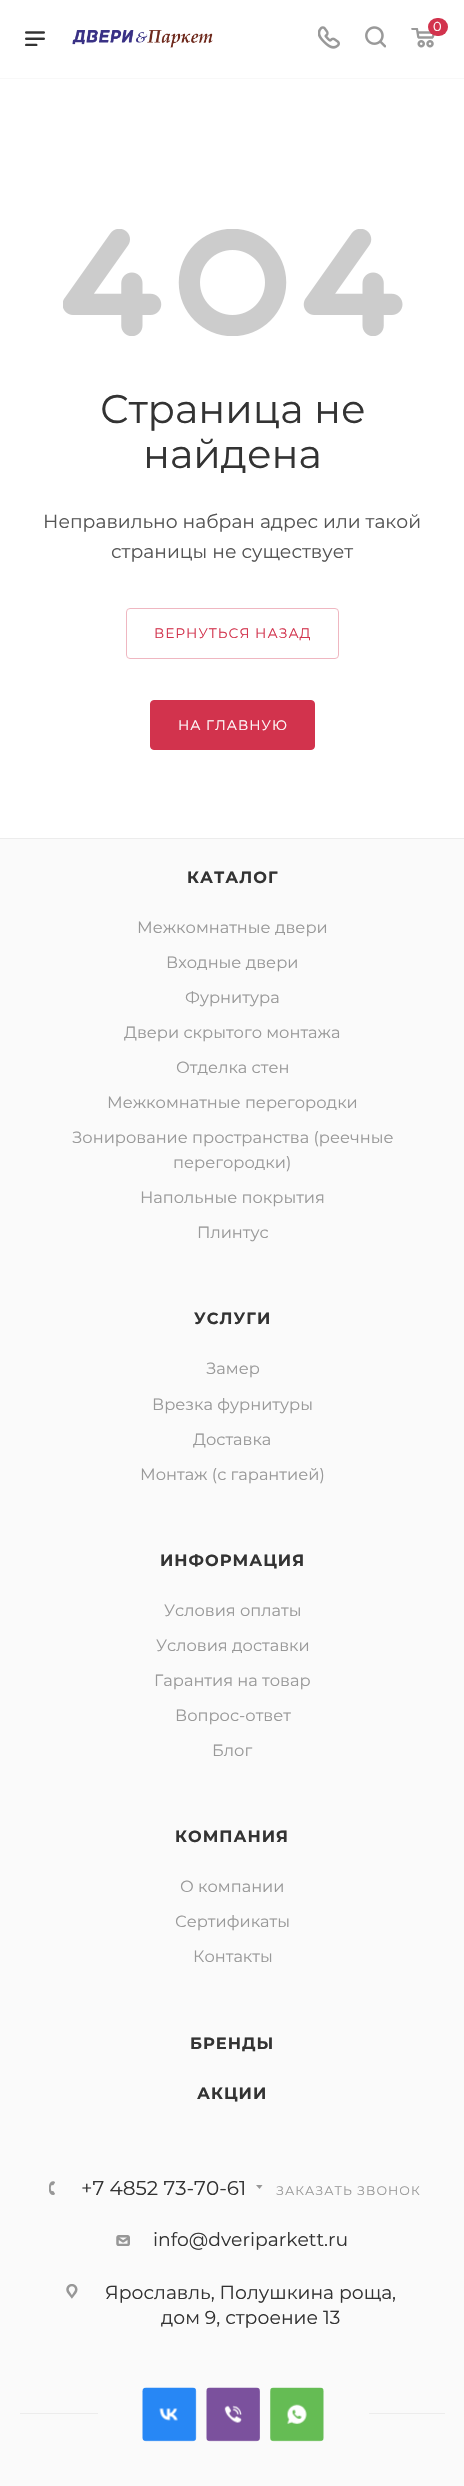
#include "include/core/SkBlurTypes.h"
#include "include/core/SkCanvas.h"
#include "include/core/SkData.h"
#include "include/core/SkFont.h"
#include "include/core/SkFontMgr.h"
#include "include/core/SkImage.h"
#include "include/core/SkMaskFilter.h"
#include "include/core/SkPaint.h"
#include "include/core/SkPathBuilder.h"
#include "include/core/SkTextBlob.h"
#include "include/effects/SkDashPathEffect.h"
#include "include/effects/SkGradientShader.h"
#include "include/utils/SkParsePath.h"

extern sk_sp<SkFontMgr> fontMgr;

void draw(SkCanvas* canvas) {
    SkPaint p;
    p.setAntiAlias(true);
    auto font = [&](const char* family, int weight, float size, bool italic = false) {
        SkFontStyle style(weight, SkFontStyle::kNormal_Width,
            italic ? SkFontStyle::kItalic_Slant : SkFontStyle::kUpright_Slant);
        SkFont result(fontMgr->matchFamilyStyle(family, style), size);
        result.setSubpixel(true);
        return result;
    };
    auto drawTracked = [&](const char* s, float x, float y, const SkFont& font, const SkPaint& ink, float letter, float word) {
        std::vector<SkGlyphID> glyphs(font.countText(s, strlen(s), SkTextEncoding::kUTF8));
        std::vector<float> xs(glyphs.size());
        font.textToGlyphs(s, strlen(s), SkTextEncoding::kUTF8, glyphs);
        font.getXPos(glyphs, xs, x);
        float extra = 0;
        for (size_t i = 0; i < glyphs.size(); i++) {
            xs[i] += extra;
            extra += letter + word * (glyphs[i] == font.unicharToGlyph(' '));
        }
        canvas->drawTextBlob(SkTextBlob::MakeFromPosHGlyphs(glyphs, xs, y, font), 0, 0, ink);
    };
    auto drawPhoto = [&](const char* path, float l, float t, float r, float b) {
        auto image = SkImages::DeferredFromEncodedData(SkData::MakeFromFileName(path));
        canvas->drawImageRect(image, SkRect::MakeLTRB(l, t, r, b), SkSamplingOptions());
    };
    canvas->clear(0xFFFFFFFF);
    p.setColor(0xFFF8F8F8);
    canvas->drawRect(SkRect::MakeLTRB(0, 78, 464, 79), p);
    drawPhoto("media/1.png", 318, 26, 340, 49);
    drawPhoto("media/2.png", 365, 26, 386, 48);
    drawPhoto("media/3.png", 411, 28, 435, 48);
    p.setColor(0xFFD2334D);
    canvas->drawRoundRect(SkRect::MakeLTRB(428, 18, 448, 36), 9, 9, p);
    auto font1 = font("Montserrat", 400, 13);
    p.setColor(0xFFFFFFFF);
    canvas->drawString("0", 433, 31, font1, p);
    drawPhoto("media/4.png", 25, 31, 45, 46);
    drawPhoto("media/5.png", 72, 30, 213, 48);
    drawPhoto("media/6.png", 63, 229, 403, 336);
    auto font2 = font("Montserrat", 400, 40);
    p.setColor(0xFF333333);
    canvas->drawString("Страница не", 100, 423, font2, p);
    canvas->drawString("найдена", 143, 468, font2, p);
    auto font3 = font("Montserrat", 400, 18.75f);
    p.setColor(0xFF555555);
    canvas->drawString("Неправильно набран адрес или такой", 43, 528, font3, p);
    canvas->drawString("страницы не существует", 111, 558, font3, p);
    p.setStyle(SkPaint::kStroke_Style);
    p.setStrokeWidth(1);
    p.setColor(0xFFEFB7C1);
    canvas->drawRoundRect(SkRect::MakeLTRB(126.5f, 608.5f, 338.5f, 658.5f), 3.5f, 3.5f, p);
    auto font4 = font("Montserrat", 400, 13.75f);
    p.setStyle(SkPaint::kFill_Style);
    p.setColor(0xFFD2334D);
    drawTracked("ВЕРНУТЬСЯ НАЗАД", 154, 638, font4, p, 1, 0);
    canvas->drawRoundRect(SkRect::MakeLTRB(150.5f, 700.5f, 314.5f, 749.5f), 3.5f, 3.5f, p);
    p.setStyle(SkPaint::kStroke_Style);
    canvas->drawRoundRect(SkRect::MakeLTRB(150.5f, 700.5f, 314.5f, 749.5f), 3.5f, 3.5f, p);
    p.setStyle(SkPaint::kFill_Style);
    p.setColor(0xFFFFFFFF);
    drawTracked("НА ГЛАВНУЮ", 178, 730, font4, p, 1, 0);
    p.setColor(0xFFFAFAFA);
    canvas->drawRect(SkRect::MakeLTRB(0, 839, 464, 2486), p);
    p.setColor(0xFFECECEC);
    canvas->drawRect(SkRect::MakeLTRB(0, 838, 464, 839), p);
    auto font5 = font("Montserrat", 700, 16.25f);
    p.setColor(0xFF333333);
    drawTracked("КАТАЛОГ", 187, 883, font5, p, 1, 0);
    auto font6 = font("Montserrat", 400, 16.25f);
    p.setColor(0xFF999999);
    {
        const struct { const char* s; float x, y; } items[] = {
            {"Межкомнатные двери", 137, 933},
            {"Входные двери", 166, 968},
            {"Фурнитура", 185, 1003},
            {"Двери скрытого монтажа", 124, 1038},
            {"Отделка стен", 176, 1073},
            {"Межкомнатные перегородки", 107, 1108},
            {"Зонирование пространства (реечные", 72, 1143},
            {"перегородки)", 173, 1168},
            {"Напольные покрытия", 140, 1203},
            {"Плинтус", 197, 1238},
        };
        for (auto [s, x, y] : items) {
            canvas->drawString(s, x, y, font6, p);
        }
    }
    p.setColor(0xFF333333);
    drawTracked("УСЛУГИ", 194, 1324, font5, p, 1, 0);
    p.setColor(0xFF999999);
    {
        const struct { const char* s; float x, y; } items[] = {
            {"Замер", 206, 1374},
            {"Врезка фурнитуры", 152, 1410},
            {"Доставка", 193, 1445},
            {"Монтаж (с гарантией)", 140, 1480},
        };
        for (auto [s, x, y] : items) {
            canvas->drawString(s, x, y, font6, p);
        }
    }
    p.setColor(0xFF333333);
    drawTracked("ИНФОРМАЦИЯ", 160, 1566, font5, p, 1, 0);
    p.setColor(0xFF999999);
    {
        const struct { const char* s; float x, y; } items[] = {
            {"Условия оплаты", 164, 1616},
            {"Условия доставки", 156, 1651},
            {"Гарантия на товар", 154, 1686},
            {"Вопрос-ответ", 175, 1721},
            {"Блог", 212, 1756},
        };
        for (auto [s, x, y] : items) {
            canvas->drawString(s, x, y, font6, p);
        }
    }
    p.setColor(0xFF333333);
    drawTracked("КОМПАНИЯ", 175, 1842, font5, p, 1, 0);
    p.setColor(0xFF999999);
    {
        const struct { const char* s; float x, y; } items[] = {
            {"О компании", 180, 1892},
            {"Сертификаты", 175, 1927},
            {"Контакты", 193, 1962},
        };
        for (auto [s, x, y] : items) {
            canvas->drawString(s, x, y, font6, p);
        }
    }
    p.setColor(0xFF333333);
    drawTracked("БРЕНДЫ", 190, 2049, font5, p, 1, 0);
    drawTracked("АКЦИИ", 197, 2099, font5, p, 1, 0);
    drawPhoto("media/7.png", 49, 2181, 55, 2195);
    auto font7 = font("Montserrat", 400, 20);
    canvas->drawString("+7 4852 73-70-61", 81, 2195, font7, p);
    p.setColor(0xFF979797);
    canvas->drawPath(SkPathBuilder(SkPathFillType::kEvenOdd).moveTo(256, 2185).lineTo(262.5f, 2185).lineTo(259.5f, 2189).close().detach(), p);
    auto font8 = font("Montserrat", 400, 12.5f);
    p.setColor(0xFF999999);
    drawTracked("ЗАКАЗАТЬ ЗВОНОК", 276, 2195, font8, p, 1, 0);
    drawPhoto("media/8.png", 116, 2235, 130, 2246);
    p.setColor(0xFF333333);
    canvas->drawString("info@dveriparkett.ru", 153, 2246, font3, p);
    drawPhoto("media/9.png", 66, 2284, 78, 2299);
    canvas->drawString("Ярославль, Полушкина роща,", 105, 2299, font3, p);
    canvas->drawString("дом 9, строение 13", 161, 2324, font3, p);
    p.setColor(0xFFECECEC);
    canvas->drawRect(SkRect::MakeLTRB(20, 2413, 445, 2414), p);
    p.setColor(0xFFFAFAFA);
    canvas->drawRect(SkRect::MakeLTRB(98, 2413, 369, 2414), p);
    drawPhoto("media/10.png", 142, 2387, 197, 2442);
    drawPhoto("media/11.png", 206, 2387, 260, 2442);
    drawPhoto("media/12.png", 270, 2387, 324, 2442);
}
